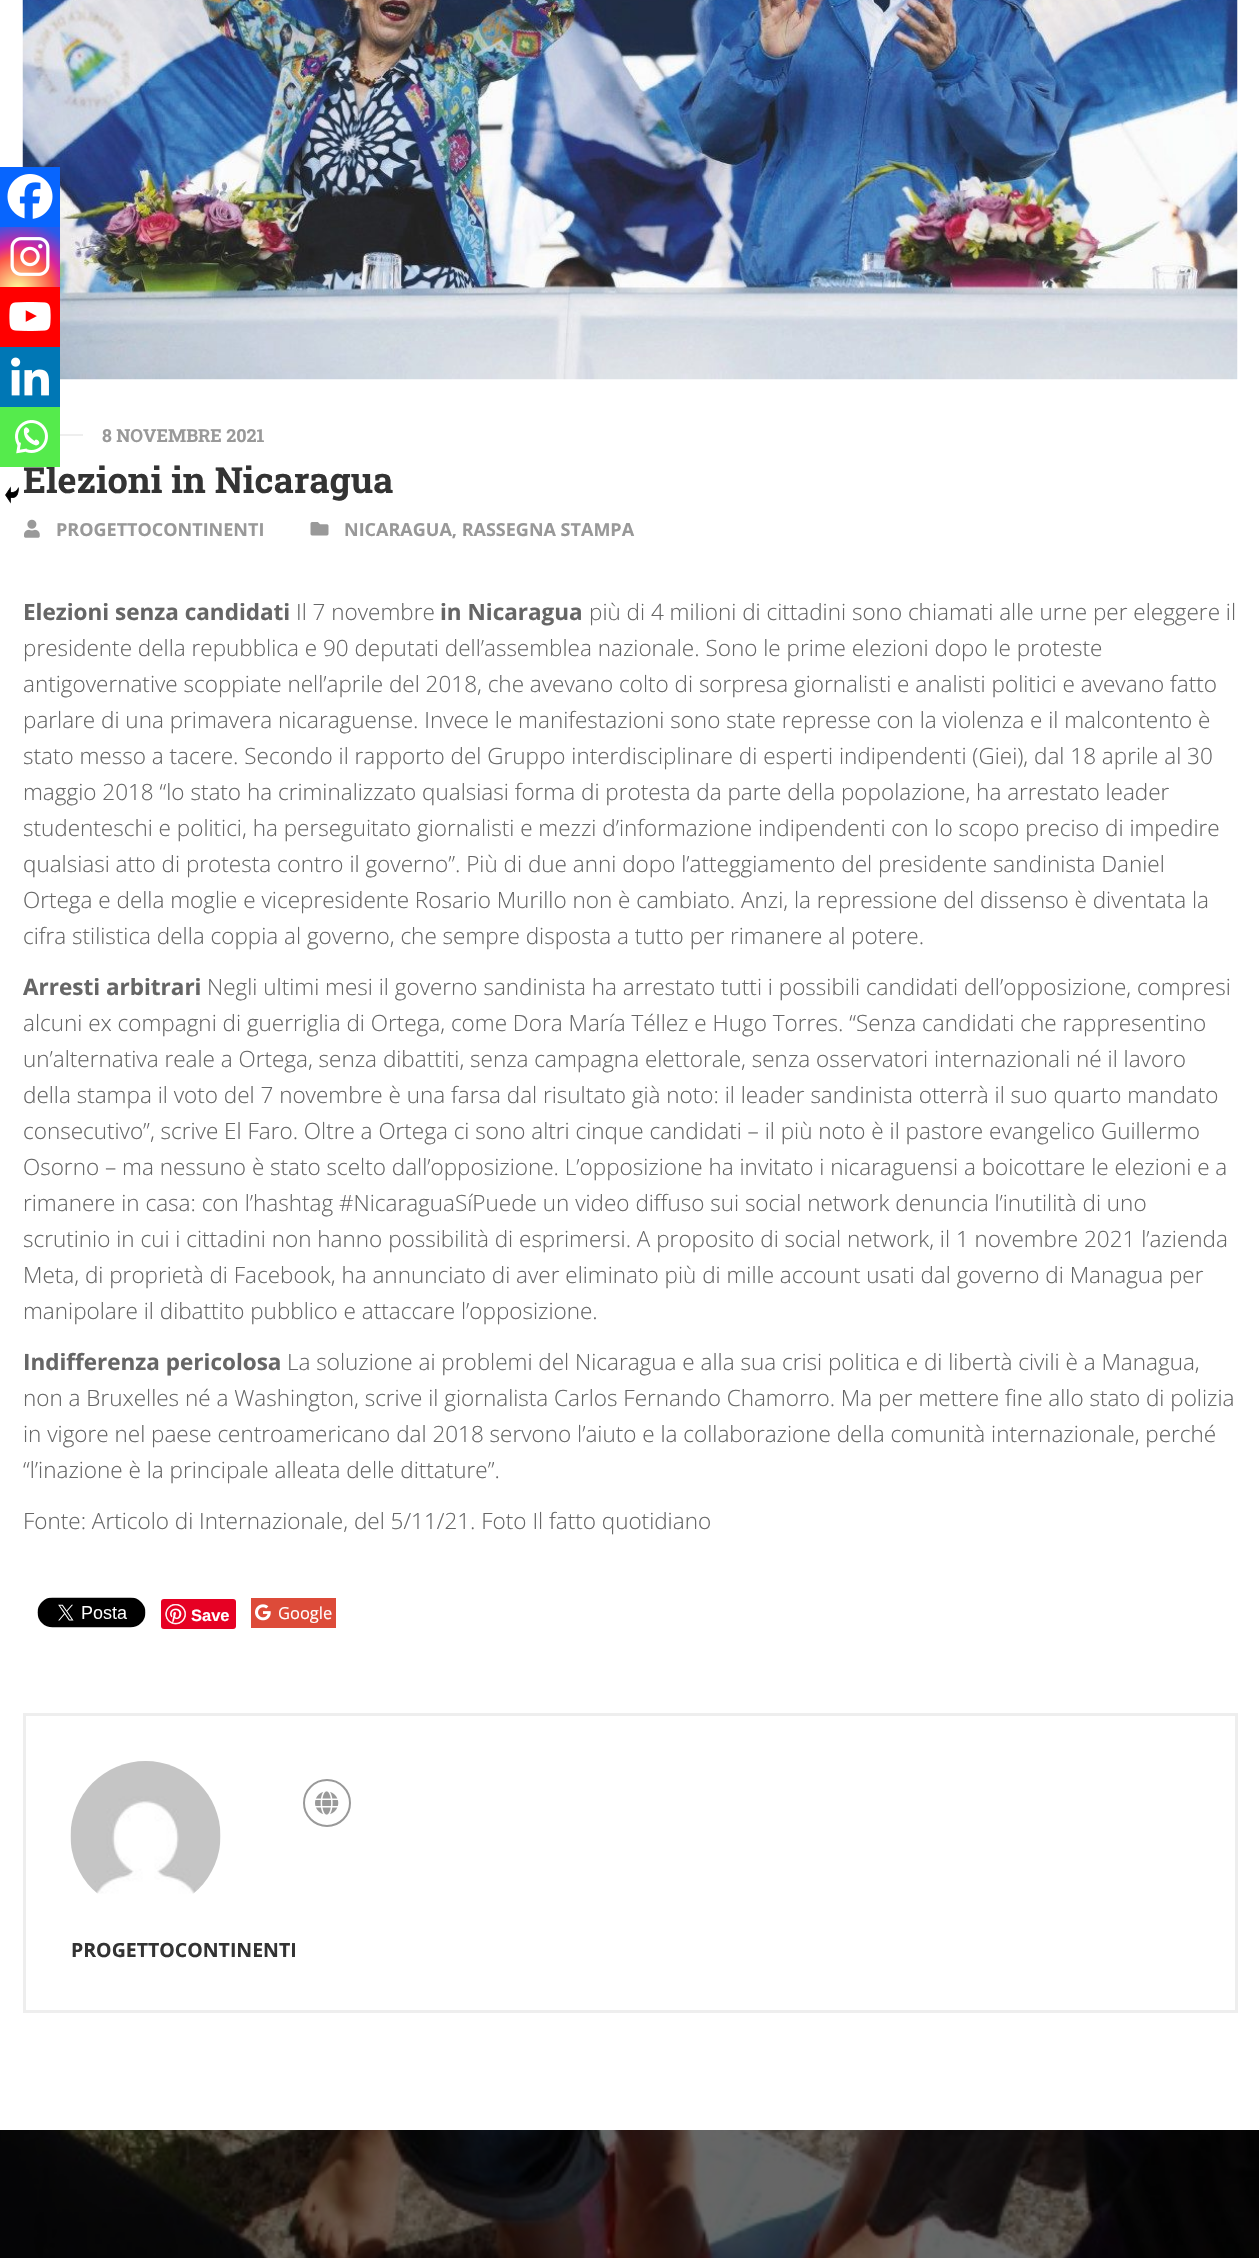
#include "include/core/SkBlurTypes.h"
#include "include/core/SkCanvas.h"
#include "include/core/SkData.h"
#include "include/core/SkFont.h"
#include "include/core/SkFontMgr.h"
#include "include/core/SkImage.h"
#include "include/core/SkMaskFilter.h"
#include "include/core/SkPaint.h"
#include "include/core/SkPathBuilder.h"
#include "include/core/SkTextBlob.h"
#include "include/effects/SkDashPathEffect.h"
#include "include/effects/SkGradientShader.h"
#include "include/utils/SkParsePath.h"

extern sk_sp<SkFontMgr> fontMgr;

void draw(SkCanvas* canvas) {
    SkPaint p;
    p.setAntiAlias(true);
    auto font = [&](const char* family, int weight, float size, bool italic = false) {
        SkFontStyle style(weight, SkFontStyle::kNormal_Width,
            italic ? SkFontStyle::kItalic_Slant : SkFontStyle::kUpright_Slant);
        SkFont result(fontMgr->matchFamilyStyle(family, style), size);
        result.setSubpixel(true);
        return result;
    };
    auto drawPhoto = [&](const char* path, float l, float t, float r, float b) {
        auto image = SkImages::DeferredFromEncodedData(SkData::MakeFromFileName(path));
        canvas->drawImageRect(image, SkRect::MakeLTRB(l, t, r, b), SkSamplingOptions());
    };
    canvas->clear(0xFFFFFFFF);
    drawPhoto("media/1.png", 22, 0, 1238, 380);
    p.setColor(0xFFEEEEEE);
    canvas->drawRect(SkRect::MakeLTRB(60, 434, 83, 436), p);
    auto font1 = font("Roboto Slab", 700, 18);
    p.setColor(0xFF999999);
    canvas->drawString("8 NOVEMBRE 2021", 102, 442, font1, p);
    auto font2 = font("Roboto Slab", 700, 36);
    p.setColor(0xFF333333);
    canvas->drawString("Elezioni in Nicaragua", 23, 493, font2, p);
    drawPhoto("media/2.png", 24, 519, 40, 538);
    auto font3 = font("Open Sans", 700, 18);
    p.setColor(0xFF999999);
    canvas->drawString("PROGETTOCONTINENTI", 56, 536, font3, p);
    drawPhoto("media/3.png", 310, 522, 329, 536);
    canvas->drawString("NICARAGUA, RASSEGNA STAMPA", 344, 536, font3, p);
    p.setColor(0xFF0765FE);
    canvas->drawRect(SkRect::MakeLTRB(0, 167, 60, 227), p);
    drawPhoto("media/4.png", 7, 174, 53, 219);
    {
        const SkColor colors[] = {0xFFFDF497, 0xFFFDF497, 0xFFFD5949, 0xFFD6249F, 0xFF285AEB};
        const float stops[] = {0, 0.05f, 0.45f, 0.6f, 0.9f};
        p.setShader(SkGradientShader::MakeRadial({18, 291}, 77, colors, stops, 5, SkTileMode::kClamp));
        p.setAlpha(255);
    }
    canvas->drawRect(SkRect::MakeLTRB(0, 227, 60, 287), p);
    drawPhoto("media/5.png", 10, 237, 50, 276);
    p.setShader(nullptr);
    p.setColor(0xFFFF0000);
    canvas->drawRect(SkRect::MakeLTRB(0, 287, 60, 347), p);
    drawPhoto("media/6.png", 9, 302, 51, 331);
    p.setColor(0xFF0077B5);
    canvas->drawRect(SkRect::MakeLTRB(0, 347, 60, 407), p);
    drawPhoto("media/7.png", 11, 357, 49, 396);
    p.setColor(0xFF55EB4C);
    canvas->drawRect(SkRect::MakeLTRB(0, 407, 60, 467), p);
    drawPhoto("media/8.png", 15, 420, 48, 454);
    drawPhoto("media/9.png", 5, 486, 19, 504);
    auto font4 = font("Open Sans", 700, 22.5f);
    p.setColor(0xFF666666);
    canvas->drawString("Elezioni senza candidati", 23, 620, font4, p);
    auto font5 = font("Open Sans", 300, 22.5f);
    canvas->drawString("Il 7 novembre", 296, 620, font5, p);
    canvas->drawString("in Nicaragua", 440, 620, font4, p);
    {
        const struct { const char* s; float x, y; } items[] = {
            {"più di 4 milioni di cittadini sono chiamati alle urne per eleggere il", 589, 620},
            {"presidente della repubblica e 90 deputati dell’assemblea nazionale. Sono le prime elezioni dopo le proteste", 23, 656},
            {"antigovernative scoppiate nell’aprile del 2018, che avevano colto di sorpresa giornalisti e analisti politici e avevano fatto", 23, 692},
            {"parlare di una primavera nicaraguense. Invece le manifestazioni sono state represse con la violenza e il malcontento è", 23, 728},
            {"stato messo a tacere. Secondo il rapporto del Gruppo interdisciplinare di esperti indipendenti (Giei), dal 18 aprile al 30", 23, 764},
            {"maggio 2018 “lo stato ha criminalizzato qualsiasi forma di protesta da parte della popolazione, ha arrestato leader", 23, 800},
            {"studenteschi e politici, ha perseguitato giornalisti e mezzi d’informazione indipendenti con lo scopo preciso di impedire", 23, 836},
            {"qualsiasi atto di protesta contro il governo”. Più di due anni dopo l’atteggiamento del presidente sandinista Daniel", 23, 872},
            {"Ortega e della moglie e vicepresidente Rosario Murillo non è cambiato. Anzi, la repressione del dissenso è diventata la", 23, 908},
            {"cifra stilistica della coppia al governo, che sempre disposta a tutto per rimanere al potere.", 23, 944},
        };
        for (auto [s, x, y] : items) {
            canvas->drawString(s, x, y, font5, p);
        }
    }
    canvas->drawString("Arresti arbitrari", 23, 995, font4, p);
    {
        const struct { const char* s; float x, y; } items[] = {
            {"Negli ultimi mesi il governo sandinista ha arrestato tutti i possibili candidati dell’opposizione, compresi", 207, 995},
            {"alcuni ex compagni di guerriglia di Ortega, come Dora María Téllez e Hugo Torres. “Senza candidati che rappresentino", 23, 1031},
            {"un’alternativa reale a Ortega, senza dibattiti, senza campagna elettorale, senza osservatori internazionali né il lavoro", 23, 1067},
            {"della stampa il voto del 7 novembre è una farsa dal risultato già noto: il leader sandinista otterrà il suo quarto mandato", 23, 1103},
            {"consecutivo”, scrive El Faro. Oltre a Ortega ci sono altri cinque candidati – il più noto è il pastore evangelico Guillermo", 23, 1139},
            {"Osorno – ma nessuno è stato scelto dall’opposizione. L’opposizione ha invitato i nicaraguensi a boicottare le elezioni e a", 23, 1175},
            {"rimanere in casa: con l’hashtag #NicaraguaSíPuede un video diffuso sui social network denuncia l’inutilità di uno", 23, 1211},
            {"scrutinio in cui i cittadini non hanno possibilità di esprimersi. A proposito di social network, il 1 novembre 2021 l’azienda", 23, 1247},
            {"Meta, di proprietà di Facebook, ha annunciato di aver eliminato più di mille account usati dal governo di Managua per", 23, 1283},
            {"manipolare il dibattito pubblico e attaccare l’opposizione.", 23, 1319},
        };
        for (auto [s, x, y] : items) {
            canvas->drawString(s, x, y, font5, p);
        }
    }
    canvas->drawString("Indifferenza pericolosa", 23, 1370, font4, p);
    {
        const struct { const char* s; float x, y; } items[] = {
            {"La soluzione ai problemi del Nicaragua e alla sua crisi politica e di libertà civili è a Managua,", 287, 1370},
            {"non a Bruxelles né a Washington, scrive il giornalista Carlos Fernando Chamorro. Ma per mettere fine allo stato di polizia", 23, 1406},
            {"in vigore nel paese centroamericano dal 2018 servono l’aiuto e la collaborazione della comunità internazionale, perché", 23, 1442},
            {"“l’inazione è la principale alleata delle dittature”.", 23, 1478},
            {"Fonte: Articolo di Internazionale, del 5/11/21. Foto Il fatto quotidiano", 23, 1529},
        };
        for (auto [s, x, y] : items) {
            canvas->drawString(s, x, y, font5, p);
        }
    }
    drawPhoto("media/10.png", 37, 1597, 146, 1628);
    p.setColor(0xFFE60023);
    canvas->drawRoundRect(SkRect::MakeLTRB(161, 1599, 236, 1629), 3, 3, p);
    drawPhoto("media/11.png", 165, 1604, 186, 1625);
    auto font6 = font("Liberation Sans", 700, 16.5f);
    p.setColor(0xFFFFFFFF);
    canvas->drawString("Save", 191, 1621, font6, p);
    p.setColor(0xFFDD4B39);
    canvas->drawRect(SkRect::MakeLTRB(251, 1598, 336, 1628), p);
    drawPhoto("media/12.png", 255, 1604, 271, 1621);
    auto font7 = font("Open Sans", 400, 16.5f);
    p.setColor(0xFFFFFFFF);
    canvas->drawString("Google", 278, 1619, font7, p);
    p.setStyle(SkPaint::kStroke_Style);
    p.setStrokeWidth(3);
    p.setColor(0xFFEEEEEE);
    canvas->drawRect(SkRect::MakeLTRB(24.5f, 1714.5f, 1236.5f, 2011.5f), p);
    p.setStrokeWidth(2);
    p.setColor(0xFF999999);
    canvas->drawCircle(327, 1803, 23, p);
    drawPhoto("media/13.png", 315, 1791, 339, 1815);
    drawPhoto("media/14.png", 70, 1761, 221, 1894);
    auto font8 = font("Open Sans", 700, 19.5f);
    p.setStyle(SkPaint::kFill_Style);
    p.setColor(0xFF333333);
    canvas->drawString("PROGETTOCONTINENTI", 71, 1957, font8, p);
    drawPhoto("media/15.png", 0, 2130, 1259, 2258);
}
